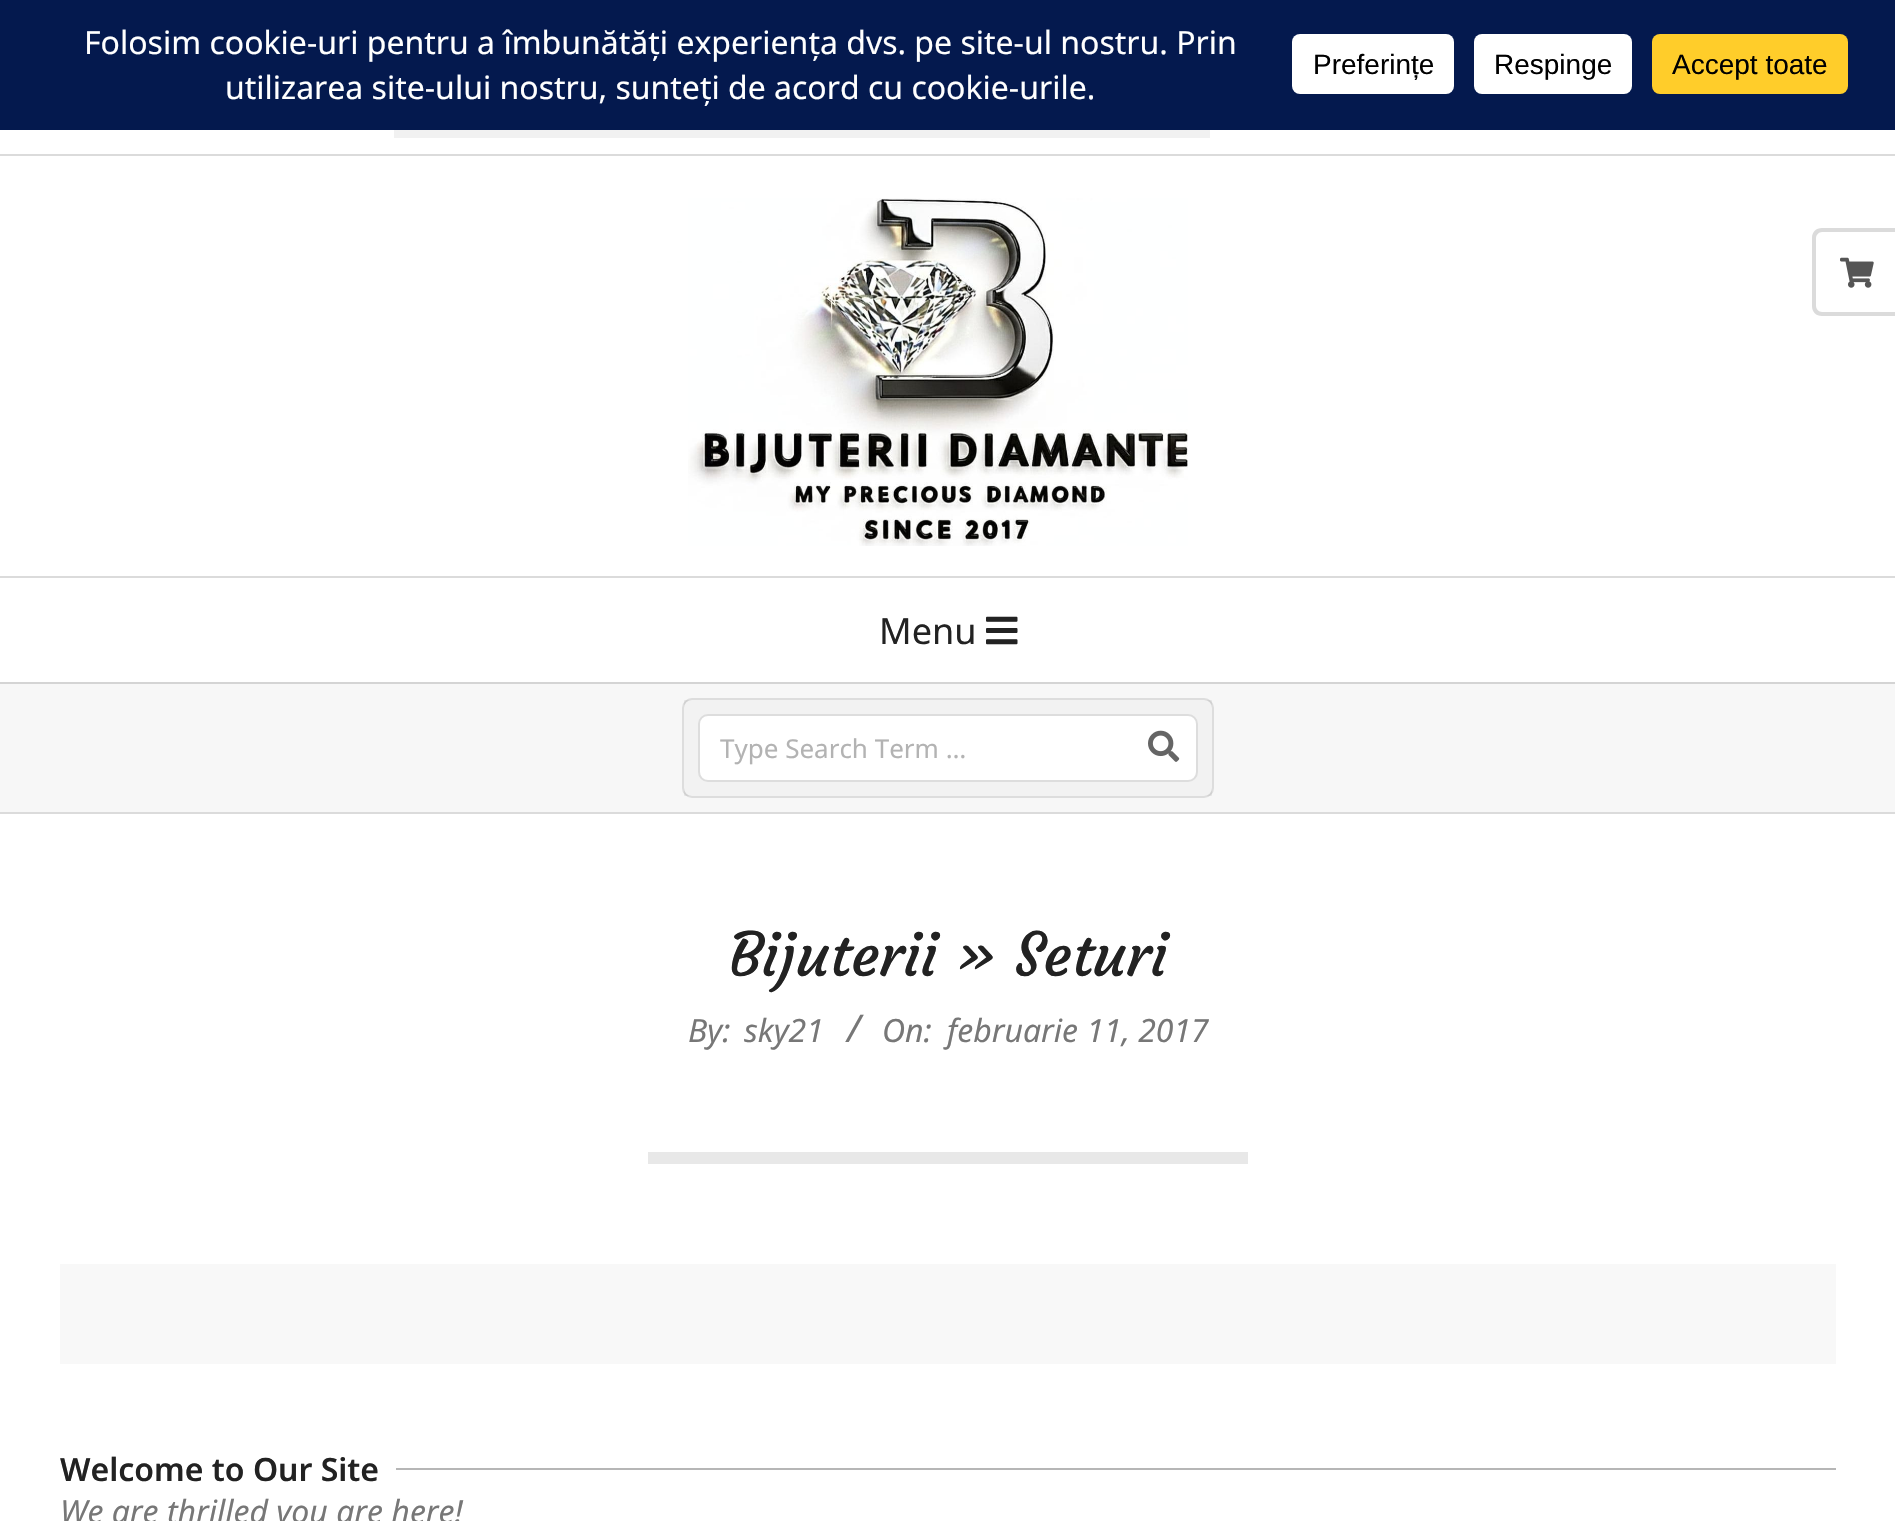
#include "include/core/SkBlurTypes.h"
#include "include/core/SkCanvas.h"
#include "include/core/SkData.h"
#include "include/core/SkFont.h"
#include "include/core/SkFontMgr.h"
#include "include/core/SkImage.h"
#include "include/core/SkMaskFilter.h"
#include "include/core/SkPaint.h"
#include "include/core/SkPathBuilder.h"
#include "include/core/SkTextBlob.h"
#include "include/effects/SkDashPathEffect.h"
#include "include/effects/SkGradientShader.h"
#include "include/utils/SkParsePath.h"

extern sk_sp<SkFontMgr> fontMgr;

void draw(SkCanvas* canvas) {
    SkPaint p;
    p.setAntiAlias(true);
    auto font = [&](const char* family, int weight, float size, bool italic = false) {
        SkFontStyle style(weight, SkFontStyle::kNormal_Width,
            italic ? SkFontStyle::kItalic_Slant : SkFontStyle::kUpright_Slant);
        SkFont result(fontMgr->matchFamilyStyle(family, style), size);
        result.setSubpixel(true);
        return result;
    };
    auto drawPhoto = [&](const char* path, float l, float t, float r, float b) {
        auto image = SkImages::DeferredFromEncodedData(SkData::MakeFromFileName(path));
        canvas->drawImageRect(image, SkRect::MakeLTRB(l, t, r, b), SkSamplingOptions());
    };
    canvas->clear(0xFFFFFFFF);
    p.setColor(0xFF04194E);
    canvas->drawRect(SkRect::MakeLTRB(0, 0, 1895, 130), p);
    auto font1 = font("Noto Sans", 400, 32);
    p.setColor(0xFFFFFFFF);
    canvas->drawString("Folosim cookie-uri pentru a îmbunătăți experiența dvs. pe site-ul nostru. Prin", 84, 54, font1, p);
    canvas->drawString("utilizarea site-ului nostru, sunteți de acord cu cookie-urile.", 225, 99, font1, p);
    canvas->drawRoundRect(SkRect::MakeLTRB(1292, 34, 1454, 94), 8, 8, p);
    auto font2 = font("Liberation Sans", 400, 28);
    p.setColor(0xFF000000);
    canvas->drawString("Preferințe", 1313, 74, font2, p);
    p.setColor(0xFFFFFFFF);
    canvas->drawRoundRect(SkRect::MakeLTRB(1474, 34, 1632, 94), 8, 8, p);
    p.setColor(0xFF000000);
    canvas->drawString("Respinge", 1494, 74, font2, p);
    p.setColor(0xFFFFCD2A);
    canvas->drawRoundRect(SkRect::MakeLTRB(1652, 34, 1848, 94), 8, 8, p);
    p.setColor(0xFF000000);
    canvas->drawString("Accept toate", 1672, 74, font2, p);
    p.setColor(0xFFDBDBDB);
    canvas->drawRect(SkRect::MakeLTRB(0, 154, 1895, 156), p);
    p.setColor(0xFFF1F1F1);
    canvas->drawRect(SkRect::MakeLTRB(394, 130, 1210, 138), p);
    p.setColor(0xFFDBDBDB);
    canvas->drawPath(SkPathBuilder(SkPathFillType::kEvenOdd).moveTo(1822, 228).lineTo(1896, 228).lineTo(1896, 316).lineTo(1822, 316).cubicTo(1816, 316, 1812, 312, 1812, 306).lineTo(1812, 238).cubicTo(1812, 232, 1816, 228, 1822, 228).close().moveTo(1822, 232).lineTo(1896, 232).lineTo(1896, 312).lineTo(1822, 312).cubicTo(1819, 312, 1816, 309, 1816, 306).lineTo(1816, 238).cubicTo(1816, 235, 1819, 232, 1822, 232).close().detach(), p);
    drawPhoto("media/1.png", 1840, 257, 1874, 288);
    canvas->drawRect(SkRect::MakeLTRB(0, 812, 1895, 814), p);
    drawPhoto("media/2.png", 688, 198, 1188, 546);
    canvas->drawRect(SkRect::MakeLTRB(0, 576, 1895, 578), p);
    auto font3 = font("Noto Sans", 400, 36);
    p.setColor(0xFF222222);
    canvas->drawString("Menu", 879, 644, font3, p);
    drawPhoto("media/3.png", 986, 616, 1018, 645);
    p.setColor(0xFFF7F7F7);
    canvas->drawRect(SkRect::MakeLTRB(0, 684, 1895, 812), p);
    p.setColor(0xFFD4D4D4);
    canvas->drawRect(SkRect::MakeLTRB(0, 682, 1895, 684), p);
    p.setColor(0xFFFFFFFF);
    canvas->drawRoundRect(SkRect::MakeLTRB(683, 699, 1213, 797), 9, 9, p);
    p.setStyle(SkPaint::kStroke_Style);
    p.setStrokeWidth(2);
    p.setColor(0xFFDDDDDD);
    canvas->drawRoundRect(SkRect::MakeLTRB(683, 699, 1213, 797), 9, 9, p);
    p.setStyle(SkPaint::kFill_Style);
    p.setColor(0x0D000000);
    canvas->drawRect(SkRect::MakeLTRB(684, 700, 1212, 796), p);
    p.setColor(0xFFFFFFFF);
    canvas->drawRoundRect(SkRect::MakeLTRB(699, 715, 1197, 781), 9, 9, p);
    p.setStyle(SkPaint::kStroke_Style);
    p.setColor(0xFFDDDDDD);
    canvas->drawRoundRect(SkRect::MakeLTRB(699, 715, 1197, 781), 9, 9, p);
    auto font4 = font("Noto Sans", 400, 26);
    p.setStyle(SkPaint::kFill_Style);
    p.setColor(0xFFB3B3B3);
    canvas->drawString("Type Search Term …", 720, 758, font4, p);
    drawPhoto("media/4.png", 1148, 730, 1180, 762);
    auto font5 = font("Courgette", 400, 60);
    p.setColor(0xFF222222);
    canvas->drawString("Bijuterii » Seturi", 729, 976, font5, p);
    auto font6 = font("Noto Sans", 400, 32, true);
    p.setColor(0xFF777777);
    canvas->drawString("By:", 688, 1042, font6, p);
    canvas->drawString("sky21", 744, 1042, font6, p);
    auto font7 = font("Noto Sans", 400, 38, true);
    canvas->drawString("/", 847, 1042, font7, p);
    canvas->drawString("On:", 882, 1042, font6, p);
    canvas->drawString("februarie 11, 2017", 947, 1042, font6, p);
    p.setColor(0xFFE8E8E8);
    canvas->drawRect(SkRect::MakeLTRB(648, 1152, 1248, 1164), p);
    p.setColor(0xFFF8F8F8);
    canvas->drawRect(SkRect::MakeLTRB(60, 1264, 1836, 1364), p);
    auto font8 = font("Noto Sans", 600, 32);
    p.setColor(0xFF222222);
    canvas->drawString("Welcome to Our Site", 60, 1481, font8, p);
    p.setColor(0xFFB6B6B6);
    canvas->drawRect(SkRect::MakeLTRB(396, 1468, 1836, 1470), p);
    p.setColor(0xFF777777);
    canvas->drawString("We are thrilled you are here!", 60, 1523, font6, p);
}
